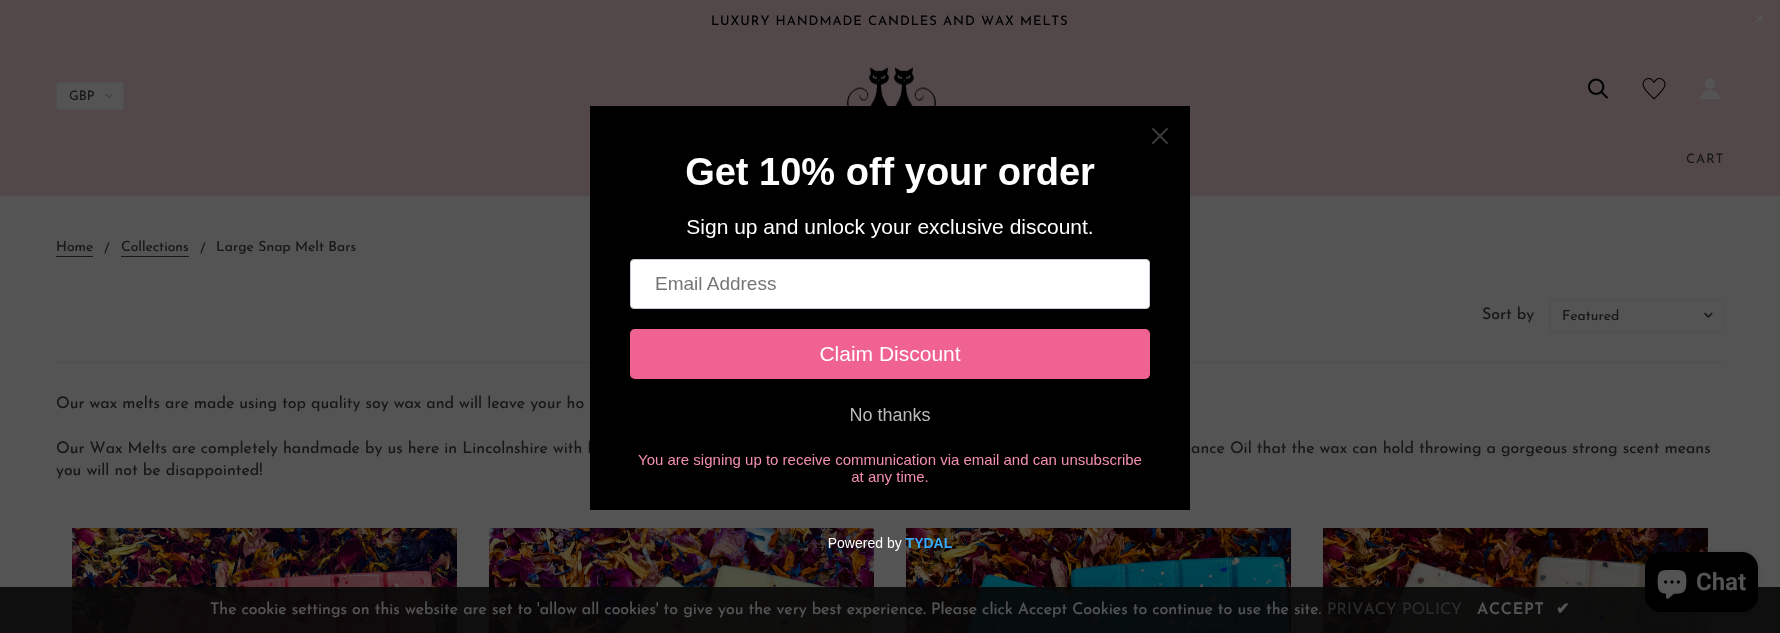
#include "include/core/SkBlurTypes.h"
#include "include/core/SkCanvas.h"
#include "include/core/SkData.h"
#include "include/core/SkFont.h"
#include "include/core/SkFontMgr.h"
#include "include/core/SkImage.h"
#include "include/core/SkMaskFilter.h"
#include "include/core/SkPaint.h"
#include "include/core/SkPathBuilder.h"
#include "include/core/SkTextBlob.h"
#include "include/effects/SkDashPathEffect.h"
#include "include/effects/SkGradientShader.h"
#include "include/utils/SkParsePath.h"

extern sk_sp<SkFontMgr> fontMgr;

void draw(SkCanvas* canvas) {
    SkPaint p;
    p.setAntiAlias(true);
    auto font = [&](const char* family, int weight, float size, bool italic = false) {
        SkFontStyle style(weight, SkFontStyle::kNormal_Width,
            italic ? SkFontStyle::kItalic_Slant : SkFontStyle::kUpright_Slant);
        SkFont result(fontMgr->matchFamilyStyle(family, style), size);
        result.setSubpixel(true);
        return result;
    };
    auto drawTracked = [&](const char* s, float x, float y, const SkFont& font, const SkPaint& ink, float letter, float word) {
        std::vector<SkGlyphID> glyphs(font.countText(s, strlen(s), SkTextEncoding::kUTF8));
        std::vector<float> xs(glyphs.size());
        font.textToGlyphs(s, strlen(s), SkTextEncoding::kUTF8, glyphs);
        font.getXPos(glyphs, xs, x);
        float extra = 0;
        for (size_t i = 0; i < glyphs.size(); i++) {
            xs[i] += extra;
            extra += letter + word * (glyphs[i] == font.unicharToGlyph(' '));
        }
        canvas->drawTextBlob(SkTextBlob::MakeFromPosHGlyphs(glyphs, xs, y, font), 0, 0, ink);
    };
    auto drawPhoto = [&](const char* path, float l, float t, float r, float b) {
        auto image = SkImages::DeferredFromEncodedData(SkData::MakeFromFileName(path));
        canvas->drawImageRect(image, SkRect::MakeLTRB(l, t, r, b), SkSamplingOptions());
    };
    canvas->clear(0xFFFFFFFF);
    p.setColor(0xFFFAD9DD);
    canvas->drawRect(SkRect::MakeLTRB(0, 0, 1780, 41), p);
    auto font1 = font("Josefin Sans", 400, 13);
    p.setColor(0xFF000000);
    drawTracked("LUXURY HANDMADE CANDLES AND WAX MELTS", 711, 25, font1, p, 1, 0);
    auto font2 = font("DejaVu Sans", 400, 14);
    p.setColor(0xFFFFFFFF);
    canvas->drawString("✕", 1754, 24, font2, p);
    p.setColor(0xFFFAD9DD);
    canvas->drawRect(SkRect::MakeLTRB(0, 41, 1780, 196), p);
    p.setColor(0xFFFFFFFF);
    canvas->drawRoundRect(SkRect::MakeLTRB(56, 82, 124, 110), 2, 2, p);
    drawPhoto("media/2.png", 105, 94, 113, 98);
    p.setStyle(SkPaint::kStroke_Style);
    p.setStrokeWidth(1);
    p.setColor(0xFFEBEBEB);
    canvas->drawRoundRect(SkRect::MakeLTRB(56.5f, 82.5f, 123.5f, 109.5f), 1.5f, 1.5f, p);
    p.setStyle(SkPaint::kFill_Style);
    p.setColor(0xFF444444);
    canvas->drawString("GBP", 69, 100, font1, p);
    drawPhoto("media/3.png", 847, 67, 936, 106);
    drawPhoto("media/4.png", 1588, 78, 1608, 99);
    drawPhoto("media/5.png", 1642, 78, 1666, 100);
    drawPhoto("media/6.png", 1700, 78, 1720, 100);
    drawTracked("CART", 1686, 163, font1, p, 1, 0);
    auto font3 = font("Josefin Sans", 400, 14);
    canvas->drawString("Home", 56, 251, font3, p);
    canvas->drawRect(SkRect::MakeLTRB(56, 256, 93, 257), p);
    canvas->drawString("/", 104, 253, font3, p);
    canvas->drawString("Collections", 121, 251, font3, p);
    canvas->drawRect(SkRect::MakeLTRB(121, 256, 189, 257), p);
    canvas->drawString("/", 200, 253, font3, p);
    canvas->drawString("Large Snap Melt Bars", 216, 251, font3, p);
    p.setColor(0xFFEBEBEB);
    canvas->drawRect(SkRect::MakeLTRB(56, 362, 1724, 363), p);
    auto font4 = font("Josefin Sans", 400, 16);
    p.setColor(0xFF444444);
    canvas->drawString("Sort by", 1482, 319, font4, p);
    p.setStyle(SkPaint::kStroke_Style);
    p.setColor(0xFFEBEBEB);
    canvas->drawRoundRect(SkRect::MakeLTRB(1549.5f, 300.5f, 1723.5f, 331.5f), 1.5f, 1.5f, p);
    p.setStyle(SkPaint::kFill_Style);
    p.setColor(0xFF444444);
    canvas->drawString("Featured", 1562, 320, font3, p);
    drawPhoto("media/7.png", 1704, 312, 1713, 318);
    {
        const struct { const char* s; float x, y; } items[] = {
            {"Our wax melts are made using top quality soy wax and will leave your ho", 56, 408},
            {"Our Wax Melts are completely handmade by us here in Lincolnshire with l", 56, 453},
            {"ance Oil that the wax can hold throwing a gorgeous strong scent means", 1191, 453},
            {"you will not be disappointed!", 56, 475},
        };
        for (auto [s, x, y] : items) {
            canvas->drawString(s, x, y, font4, p);
        }
    }
    drawPhoto("media/8.png", 72, 528, 457, 633);
    drawPhoto("media/9.png", 489, 528, 874, 633);
    drawPhoto("media/10.png", 906, 528, 1291, 633);
    drawPhoto("media/11.png", 1323, 528, 1708, 633);
    p.setColor(0xE6141414);
    canvas->drawRect(SkRect::MakeLTRB(0, 587, 1780, 633), p);
    p.setColor(0x26000000);
    p.setMaskFilter(SkMaskFilter::MakeBlur(kNormal_SkBlurStyle, 2.5f));
    canvas->drawRoundRect(SkRect::MakeLTRB(1645, 552, 1758, 612), 16, 16, p);
    p.setMaskFilter(nullptr);
    p.setColor(0xFF000000);
    canvas->drawRoundRect(SkRect::MakeLTRB(1645, 552, 1758, 612), 16, 16, p);
    drawPhoto("media/12.png", 1657, 570, 1687, 599);
    auto font5 = font("Roboto", 600, 24);
    p.setColor(0xFFFFFFFF);
    canvas->drawString("Chat", 1696, 590, font5, p);
    canvas->drawString("The cookie settings on this website are set to 'allow all cookies' to give you the very best experience. Please click Accept Cookies to continue to use the site.", 210, 614, font4, p);
    p.setColor(0xFF818181);
    canvas->drawString("PRIVACY POLICY", 1327, 614, font4, p);
    auto font6 = font("Josefin Sans", 600, 16);
    p.setColor(0xFFFFFFFF);
    drawTracked("ACCEPT", 1477, 614, font6, p, 0.75f, 0);
    auto font7 = font("DejaVu Sans", 700, 16);
    drawTracked("✔", 1556, 614, font7, p, 0.75f, 0);
    drawPhoto("media/1.png", 0, 0, 1780, 633);
}
